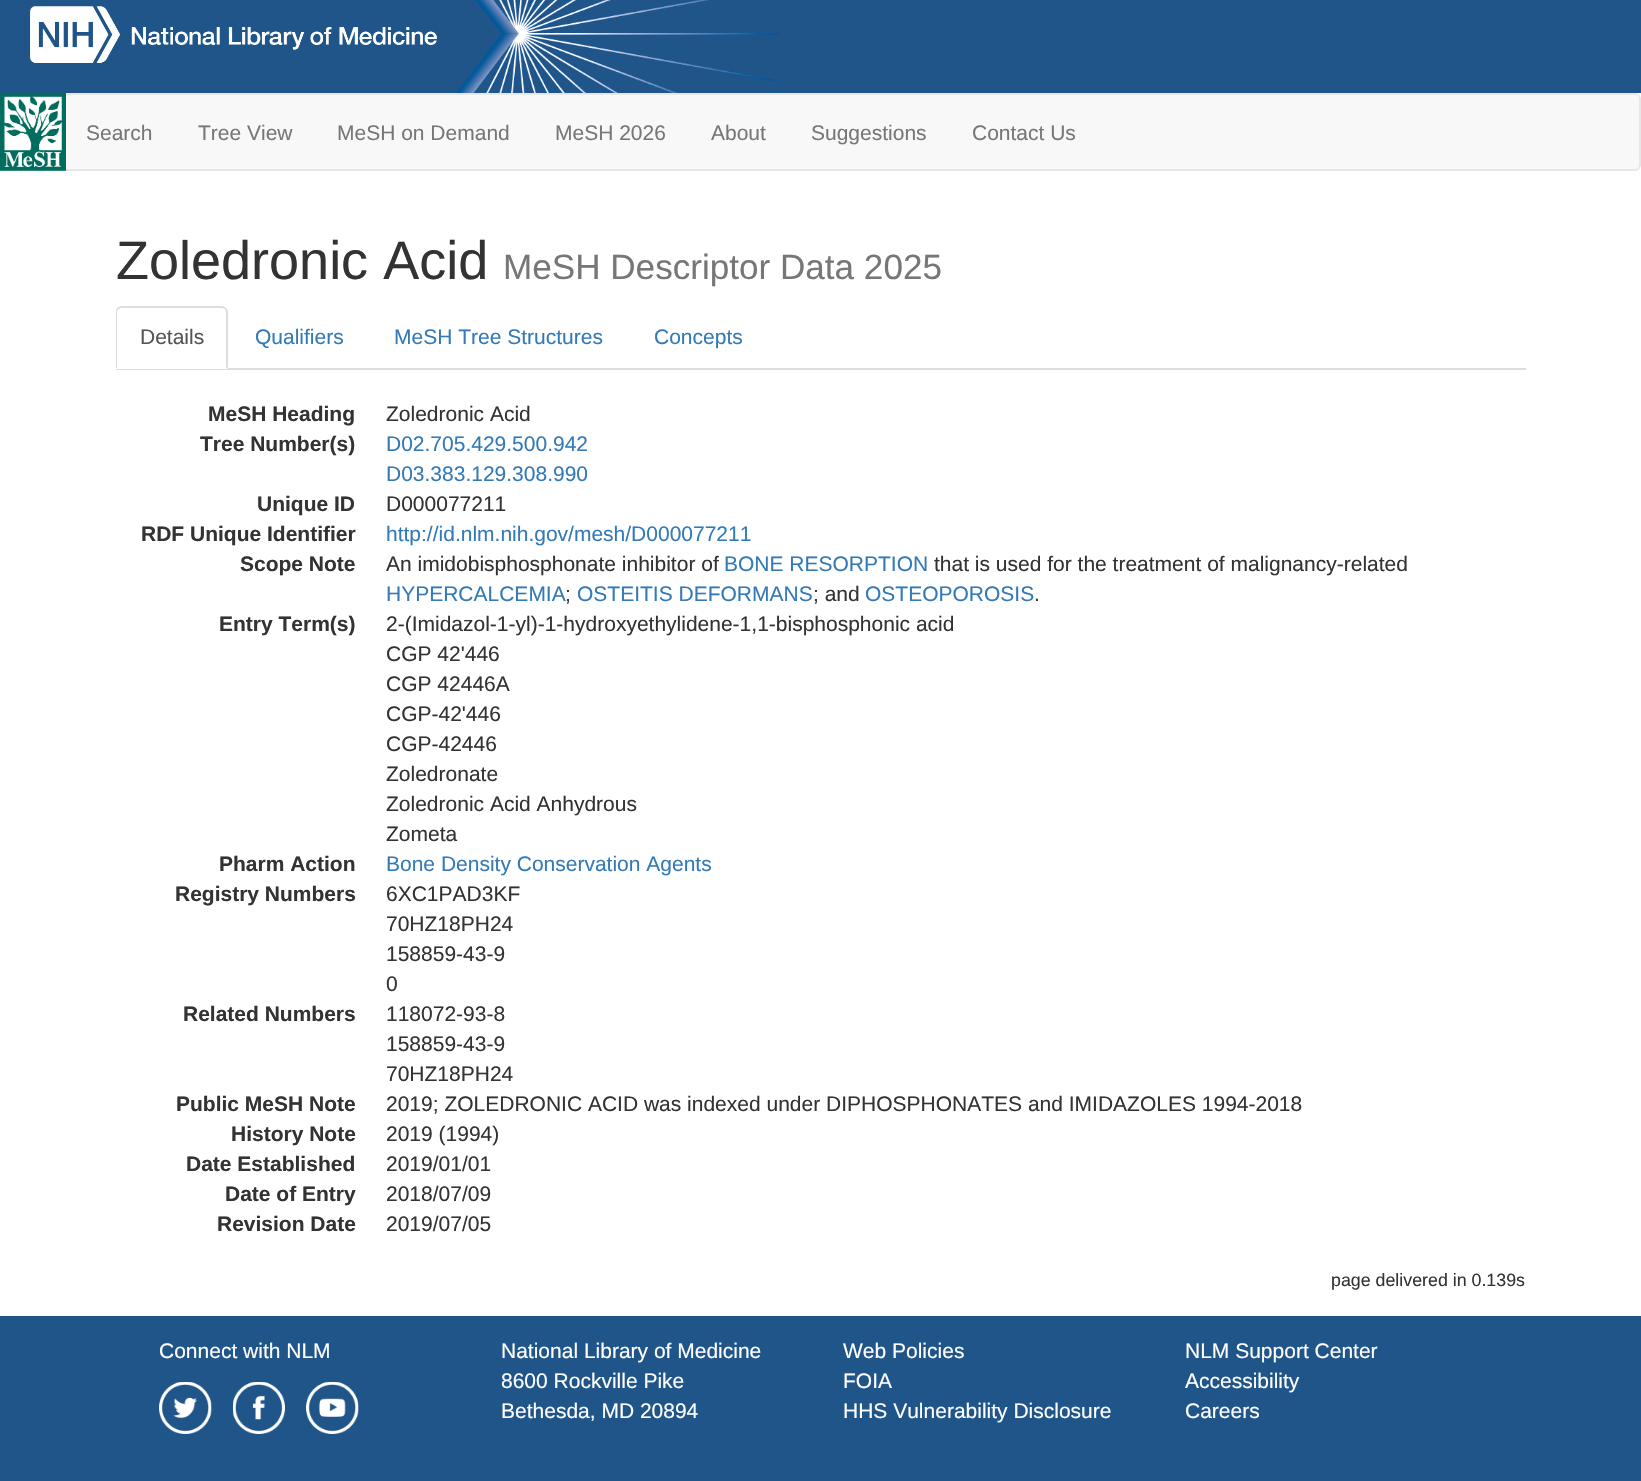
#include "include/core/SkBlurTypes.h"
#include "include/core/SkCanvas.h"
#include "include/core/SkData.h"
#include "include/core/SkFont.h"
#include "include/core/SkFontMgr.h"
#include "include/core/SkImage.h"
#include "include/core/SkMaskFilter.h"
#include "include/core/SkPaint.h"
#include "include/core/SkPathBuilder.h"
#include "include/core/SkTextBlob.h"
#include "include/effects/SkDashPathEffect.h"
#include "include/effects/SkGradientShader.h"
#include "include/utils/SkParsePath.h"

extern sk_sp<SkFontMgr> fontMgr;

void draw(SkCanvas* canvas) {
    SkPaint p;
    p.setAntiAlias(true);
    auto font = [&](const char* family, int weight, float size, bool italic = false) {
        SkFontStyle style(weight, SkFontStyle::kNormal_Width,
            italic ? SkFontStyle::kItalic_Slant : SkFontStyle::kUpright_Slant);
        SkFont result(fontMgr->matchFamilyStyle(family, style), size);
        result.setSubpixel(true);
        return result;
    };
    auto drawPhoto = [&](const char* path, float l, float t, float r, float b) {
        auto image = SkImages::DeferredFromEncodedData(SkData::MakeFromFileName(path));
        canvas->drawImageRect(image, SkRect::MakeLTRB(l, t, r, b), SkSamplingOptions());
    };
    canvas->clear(0xFFFFFFFF);
    p.setColor(0xFF20558A);
    canvas->drawRect(SkRect::MakeLTRB(0, 0, 1641, 93), p);
    drawPhoto("media/1.png", 456, 0, 779, 93);
    drawPhoto("media/2.png", 30, 6, 437, 63);
    p.setColor(0xFFF8F8F8);
    canvas->drawRoundRect(SkRect::MakeLTRB(1, 94, 1640, 170), 5, 5, p);
    p.setStyle(SkPaint::kStroke_Style);
    p.setStrokeWidth(2);
    p.setColor(0xFFE7E7E7);
    canvas->drawRoundRect(SkRect::MakeLTRB(1, 94, 1640, 170), 5, 5, p);
    drawPhoto("media/3.png", 0, 93, 66, 171);
    auto font1 = font("Liberation Sans", 400, 21);
    p.setStyle(SkPaint::kFill_Style);
    p.setColor(0xFF777777);
    {
        const struct { const char* s; float x, y; } items[] = {
            {"Search", 86, 140},
            {"Tree View", 198, 140},
            {"MeSH on Demand", 337, 140},
            {"MeSH 2026", 555, 140},
            {"About", 711, 140},
            {"Suggestions", 811, 140},
            {"Contact Us", 972, 140},
        };
        for (auto [s, x, y] : items) {
            canvas->drawString(s, x, y, font1, p);
        }
    }
    auto font2 = font("Liberation Sans", 400, 54);
    p.setColor(0xFF333333);
    canvas->drawString("Zoledronic Acid", 116, 279, font2, p);
    auto font3 = font("Liberation Sans", 400, 35.1f);
    p.setColor(0xFF777777);
    canvas->drawString("MeSH Descriptor Data 2025", 503, 279, font3, p);
    p.setColor(0xFFDDDDDD);
    canvas->drawRect(SkRect::MakeLTRB(116, 368, 1526, 370), p);
    p.setColor(0xFFFFFFFF);
    canvas->drawPath(SkPathBuilder().moveTo(122, 306).lineTo(222, 306).cubicTo(225.5f, 306, 228, 308.5f, 228, 312).lineTo(228, 369).lineTo(116, 369).lineTo(116, 312).cubicTo(116, 308.5f, 118.5f, 306, 122, 306).close().detach(), p);
    p.setColor(0xFFDDDDDD);
    canvas->drawPath(SkPathBuilder().moveTo(122, 306).cubicTo(120, 306, 118, 307, 117, 308).lineTo(119, 309).lineTo(121, 308).lineTo(222, 308).lineTo(225, 309).lineTo(226, 308).cubicTo(225, 307, 224, 306, 222, 306).close().detach(), p);
    canvas->drawPath(SkPathBuilder().moveTo(228, 369).lineTo(228, 312).cubicTo(228, 310, 227, 309, 226, 308).lineTo(225, 309).lineTo(226, 312).lineTo(226, 367).close().detach(), p);
    canvas->drawPath(SkPathBuilder().moveTo(117, 308).cubicTo(116, 309, 116, 311, 116, 312).lineTo(116, 368).lineTo(117, 368).lineTo(117, 311).lineTo(119, 309).close().detach(), p);
    p.setColor(0xFF555555);
    canvas->drawString("Details", 140, 344, font1, p);
    p.setColor(0xFF337AB7);
    {
        const struct { const char* s; float x, y; } items[] = {
            {"Qualifiers", 255, 344},
            {"MeSH Tree Structures", 394, 344},
            {"Concepts", 654, 344},
        };
        for (auto [s, x, y] : items) {
            canvas->drawString(s, x, y, font1, p);
        }
    }
    auto font4 = font("Liberation Sans", 700, 21);
    p.setColor(0xFF333333);
    canvas->drawString("MeSH Heading", 208, 421, font4, p);
    canvas->drawString("Zoledronic Acid", 386, 421, font1, p);
    canvas->drawString("Tree Number(s)", 200, 451, font4, p);
    p.setColor(0xFF337AB7);
    canvas->drawString("D02.705.429.500.942", 386, 451, font1, p);
    canvas->drawString("D03.383.129.308.990", 386, 481, font1, p);
    p.setColor(0xFF333333);
    canvas->drawString("Unique ID", 257, 511, font4, p);
    canvas->drawString("D000077211", 386, 511, font1, p);
    canvas->drawString("RDF Unique Identifier", 141, 541, font4, p);
    p.setColor(0xFF337AB7);
    canvas->drawString("http://id.nlm.nih.gov/mesh/D000077211", 386, 541, font1, p);
    p.setColor(0xFF333333);
    canvas->drawString("Scope Note", 240, 571, font4, p);
    canvas->drawString("An imidobisphosphonate inhibitor of", 386, 571, font1, p);
    p.setColor(0xFF337AB7);
    canvas->drawString("BONE RESORPTION", 724, 571, font1, p);
    p.setColor(0xFF333333);
    canvas->drawString("that is used for the treatment of malignancy-related", 934, 571, font1, p);
    p.setColor(0xFF337AB7);
    canvas->drawString("HYPERCALCEMIA", 386, 601, font1, p);
    p.setColor(0xFF333333);
    canvas->drawString(";", 565, 601, font1, p);
    p.setColor(0xFF337AB7);
    canvas->drawString("OSTEITIS DEFORMANS", 577, 601, font1, p);
    p.setColor(0xFF333333);
    canvas->drawString("; and", 813, 601, font1, p);
    p.setColor(0xFF337AB7);
    canvas->drawString("OSTEOPOROSIS", 865, 601, font1, p);
    p.setColor(0xFF333333);
    canvas->drawString(".", 1034, 601, font1, p);
    canvas->drawString("Entry Term(s)", 219, 631, font4, p);
    {
        const struct { const char* s; float x, y; } items[] = {
            {"2-(Imidazol-1-yl)-1-hydroxyethylidene-1,1-bisphosphonic acid", 386, 631},
            {"CGP 42'446", 386, 661},
            {"CGP 42446A", 386, 691},
            {"CGP-42'446", 386, 721},
            {"CGP-42446", 386, 751},
            {"Zoledronate", 386, 781},
            {"Zoledronic Acid Anhydrous", 386, 811},
            {"Zometa", 386, 841},
        };
        for (auto [s, x, y] : items) {
            canvas->drawString(s, x, y, font1, p);
        }
    }
    canvas->drawString("Pharm Action", 219, 871, font4, p);
    p.setColor(0xFF337AB7);
    canvas->drawString("Bone Density Conservation Agents", 386, 871, font1, p);
    p.setColor(0xFF333333);
    canvas->drawString("Registry Numbers", 175, 901, font4, p);
    {
        const struct { const char* s; float x, y; } items[] = {
            {"6XC1PAD3KF", 386, 901},
            {"70HZ18PH24", 386, 931},
            {"158859-43-9", 386, 961},
            {"0", 386, 991},
        };
        for (auto [s, x, y] : items) {
            canvas->drawString(s, x, y, font1, p);
        }
    }
    canvas->drawString("Related Numbers", 183, 1021, font4, p);
    {
        const struct { const char* s; float x, y; } items[] = {
            {"118072-93-8", 386, 1021},
            {"158859-43-9", 386, 1051},
            {"70HZ18PH24", 386, 1081},
        };
        for (auto [s, x, y] : items) {
            canvas->drawString(s, x, y, font1, p);
        }
    }
    canvas->drawString("Public MeSH Note", 176, 1111, font4, p);
    canvas->drawString("2019; ZOLEDRONIC ACID was indexed under DIPHOSPHONATES and IMIDAZOLES 1994-2018", 386, 1111, font1, p);
    canvas->drawString("History Note", 231, 1141, font4, p);
    canvas->drawString("2019 (1994)", 386, 1141, font1, p);
    canvas->drawString("Date Established", 186, 1171, font4, p);
    canvas->drawString("2019/01/01", 386, 1171, font1, p);
    canvas->drawString("Date of Entry", 225, 1201, font4, p);
    canvas->drawString("2018/07/09", 386, 1201, font1, p);
    canvas->drawString("Revision Date", 217, 1231, font4, p);
    canvas->drawString("2019/07/05", 386, 1231, font1, p);
    auto font5 = font("Liberation Sans", 400, 17.8f);
    canvas->drawString("page delivered in 0.139s", 1331, 1286, font5, p);
    p.setColor(0xFF20558A);
    canvas->drawRect(SkRect::MakeLTRB(0, 1316, 1641, 1481), p);
    p.setColor(0xFFFFFFFF);
    canvas->drawString("Connect with NLM", 159, 1358, font1, p);
    drawPhoto("media/4.png", 159, 1382, 212, 1434);
    drawPhoto("media/5.png", 233, 1382, 285, 1434);
    drawPhoto("media/6.png", 306, 1382, 359, 1434);
    {
        const struct { const char* s; float x, y; } items[] = {
            {"National Library of Medicine", 501, 1358},
            {"8600 Rockville Pike", 501, 1388},
            {"Bethesda, MD 20894", 501, 1418},
            {"Web Policies", 843, 1358},
            {"FOIA", 843, 1388},
            {"HHS Vulnerability Disclosure", 843, 1418},
            {"NLM Support Center", 1185, 1358},
            {"Accessibility", 1185, 1388},
            {"Careers", 1185, 1418},
        };
        for (auto [s, x, y] : items) {
            canvas->drawString(s, x, y, font1, p);
        }
    }
}
